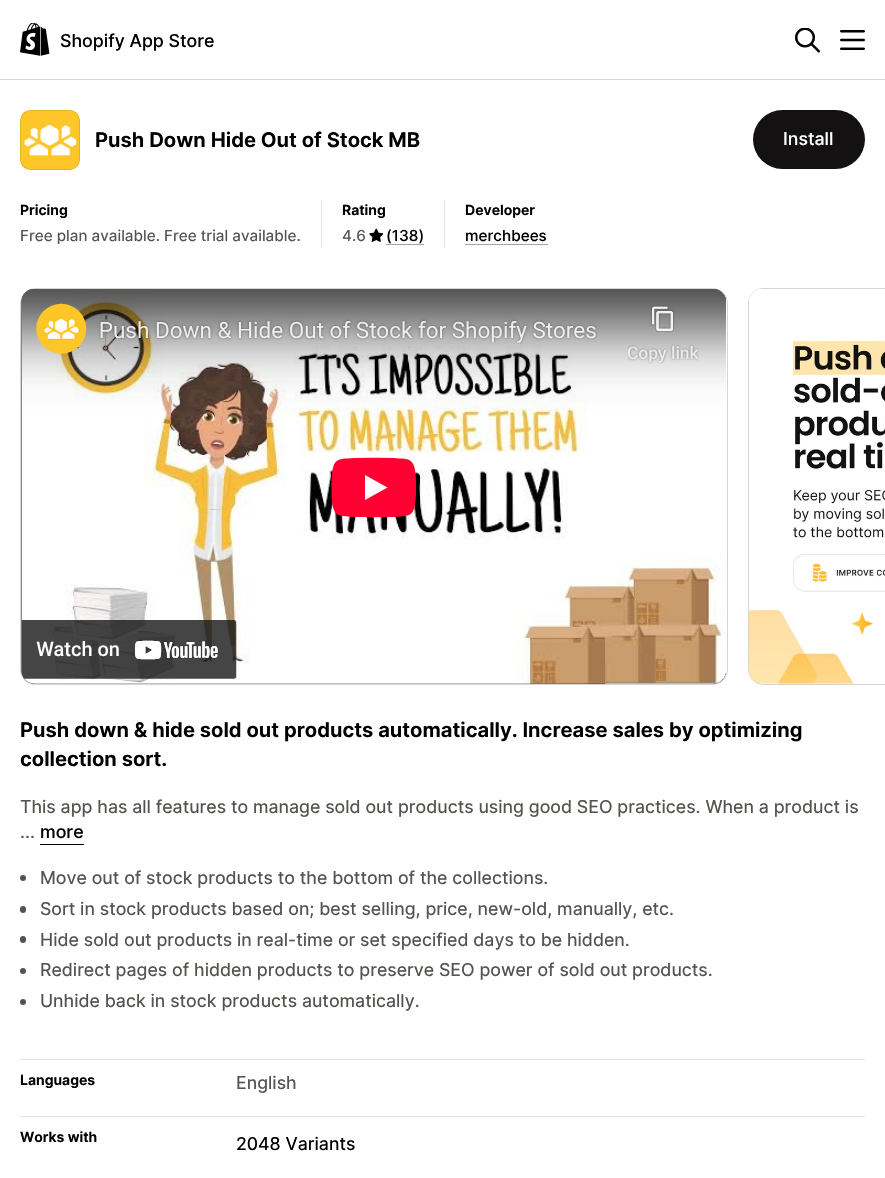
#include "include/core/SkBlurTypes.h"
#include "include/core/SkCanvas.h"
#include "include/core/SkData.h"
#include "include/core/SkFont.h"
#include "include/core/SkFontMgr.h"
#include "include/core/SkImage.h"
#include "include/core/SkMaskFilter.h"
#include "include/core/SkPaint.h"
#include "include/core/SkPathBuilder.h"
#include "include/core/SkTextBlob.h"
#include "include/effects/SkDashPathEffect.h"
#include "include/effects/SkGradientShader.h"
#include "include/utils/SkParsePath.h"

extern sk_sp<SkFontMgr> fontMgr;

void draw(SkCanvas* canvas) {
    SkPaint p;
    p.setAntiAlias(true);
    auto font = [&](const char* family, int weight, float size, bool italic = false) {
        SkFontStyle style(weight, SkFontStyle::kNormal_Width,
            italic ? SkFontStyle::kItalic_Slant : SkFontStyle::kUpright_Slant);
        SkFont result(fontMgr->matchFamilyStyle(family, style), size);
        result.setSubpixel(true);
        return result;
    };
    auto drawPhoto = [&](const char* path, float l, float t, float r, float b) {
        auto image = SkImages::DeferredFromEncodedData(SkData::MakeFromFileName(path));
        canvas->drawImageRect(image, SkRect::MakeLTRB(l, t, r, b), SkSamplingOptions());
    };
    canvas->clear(0xFFFFFFFF);
    p.setColor(0xFFD6D3D1);
    canvas->drawRect(SkRect::MakeLTRB(0, 79, 885, 80), p);
    drawPhoto("media/1.png", 20, 23, 50, 56);
    auto font1 = font("Inter", 500, 17.75f);
    p.setColor(0xFF000000);
    canvas->drawString("Shopify App Store", 60, 47, font1, p);
    drawPhoto("media/2.png", 795, 28, 820, 53);
    drawPhoto("media/3.png", 840, 30, 865, 50);
    drawPhoto("media/4.png", 20, 110, 80, 170);
    p.setStyle(SkPaint::kStroke_Style);
    p.setStrokeWidth(1);
    p.setColor(0x1A000000);
    canvas->drawRoundRect(SkRect::MakeLTRB(20.5f, 110.5f, 79.5f, 169.5f), 9.5f, 9.5f, p);
    auto font2 = font("Inter", 600, 20.25f);
    p.setStyle(SkPaint::kFill_Style);
    p.setColor(0xFF000000);
    canvas->drawString("Push Down Hide Out of Stock MB", 95, 147, font2, p);
    p.setColor(0xFFE7E5E4);
    canvas->drawRect(SkRect::MakeLTRB(321, 200, 322, 248), p);
    auto font3 = font("Inter", 600, 14);
    p.setColor(0xFF000000);
    canvas->drawString("Pricing", 20, 215, font3, p);
    auto font4 = font("Inter", 400, 15.25f);
    p.setColor(0xFF56524E);
    canvas->drawString("Free plan available. Free trial available.", 20, 241, font4, p);
    p.setColor(0xFFE7E5E4);
    canvas->drawRect(SkRect::MakeLTRB(444, 200, 445, 248), p);
    p.setColor(0xFF000000);
    canvas->drawString("Rating", 342, 215, font3, p);
    p.setColor(0xFF56524E);
    canvas->drawString("4.6", 342, 241, font4, p);
    drawPhoto("media/5.png", 369, 228, 384, 242);
    auto font5 = font("Inter", 500, 15.25f);
    p.setColor(0xFF000000);
    canvas->drawString("(138)", 386, 241, font5, p);
    p.setColor(0xFFA8A29F);
    canvas->drawRect(SkRect::MakeLTRB(386, 244, 424, 245), p);
    p.setColor(0xFF000000);
    canvas->drawString("Developer", 465, 215, font3, p);
    canvas->drawString("merchbees", 465, 241, font5, p);
    p.setColor(0xFFA8A29F);
    canvas->drawRect(SkRect::MakeLTRB(465, 244, 548, 245), p);
    p.setColor(0xFF131111);
    canvas->drawRoundRect(SkRect::MakeLTRB(753, 110, 865, 169), 29.5f, 29.5f, p);
    p.setColor(0xFFFFFFFF);
    canvas->drawString("Install", 783, 145, font1, p);
    p.setStyle(SkPaint::kStroke_Style);
    p.setColor(0xFFD6D3D1);
    canvas->drawRoundRect(SkRect::MakeLTRB(20.5f, 288.5f, 727.5f, 684.5f), 14.5f, 14.5f, p);
    drawPhoto("media/6.png", 21, 289, 726, 684);
    canvas->drawRoundRect(SkRect::MakeLTRB(748.5f, 288.5f, 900.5f, 684.5f), 14.5f, 14.5f, p);
    drawPhoto("media/7.png", 749, 289, 885, 684);
    p.setStyle(SkPaint::kFill_Style);
    p.setColor(0xFF000000);
    canvas->drawString("Push down & hide sold out products automatically. Increase sales by optimizing", 20, 737, font2, p);
    canvas->drawString("collection sort.", 20, 766, font2, p);
    auto font6 = font("Inter", 400, 17.75f);
    p.setColor(0xFF56524E);
    canvas->drawString("This app has all features to manage sold out products using good SEO practices. When a product is", 20, 813, font6, p);
    canvas->drawString("...", 20, 838, font6, p);
    p.setColor(0xFF000000);
    canvas->drawString("more", 40, 838, font1, p);
    canvas->drawRect(SkRect::MakeLTRB(40, 844, 84, 845), p);
    p.setColor(0xFF56524E);
    canvas->drawCircle(23, 878, 3, p);
    canvas->drawString("Move out of stock products to the bottom of the collections.", 40, 884, font6, p);
    canvas->drawRoundRect(SkRect::MakeLTRB(20, 906, 26, 913), 3, 3, p);
    canvas->drawString("Sort in stock products based on; best selling, price, new-old, manually, etc.", 40, 915, font6, p);
    canvas->drawRoundRect(SkRect::MakeLTRB(20, 936, 26, 943), 3, 3, p);
    canvas->drawString("Hide sold out products in real-time or set specified days to be hidden.", 40, 946, font6, p);
    canvas->drawCircle(23, 971, 3, p);
    canvas->drawString("Redirect pages of hidden products to preserve SEO power of sold out products.", 40, 976, font6, p);
    canvas->drawCircle(23, 1002, 3, p);
    canvas->drawString("Unhide back in stock products automatically.", 40, 1007, font6, p);
    p.setColor(0xFFE7E5E4);
    canvas->drawRect(SkRect::MakeLTRB(20, 1059, 865, 1060), p);
    p.setColor(0xFF000000);
    canvas->drawString("Languages", 20, 1085, font3, p);
    p.setColor(0xFF56524E);
    canvas->drawString("English", 236, 1089, font6, p);
    p.setColor(0xFFE7E5E4);
    canvas->drawRect(SkRect::MakeLTRB(20, 1116, 865, 1117), p);
    p.setColor(0xFF000000);
    canvas->drawString("Works with", 20, 1142, font3, p);
    canvas->drawString("2048 Variants", 236, 1150, font6, p);
}
